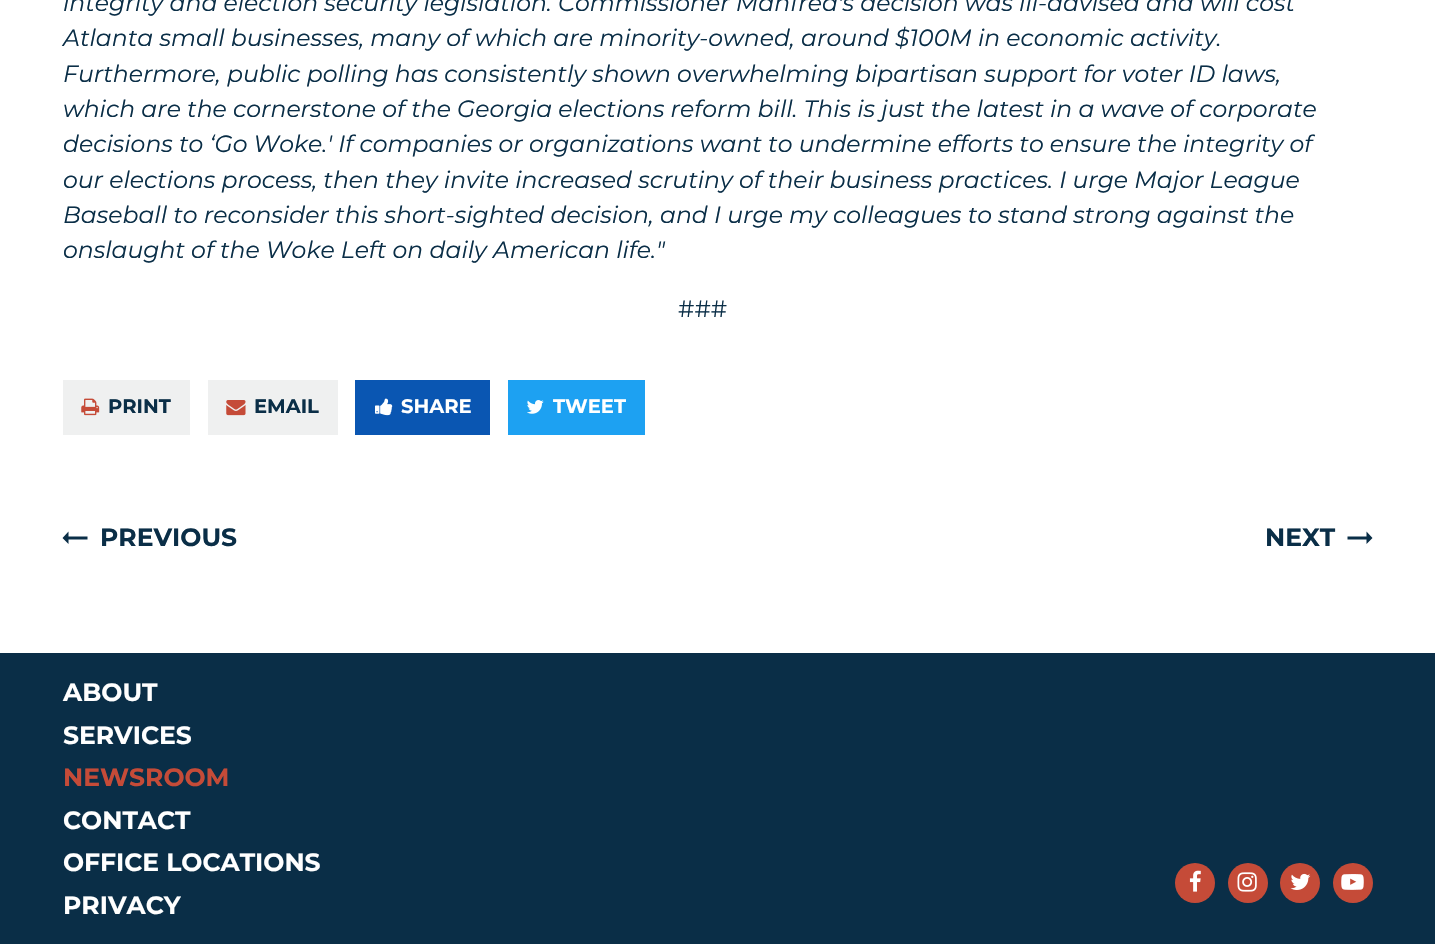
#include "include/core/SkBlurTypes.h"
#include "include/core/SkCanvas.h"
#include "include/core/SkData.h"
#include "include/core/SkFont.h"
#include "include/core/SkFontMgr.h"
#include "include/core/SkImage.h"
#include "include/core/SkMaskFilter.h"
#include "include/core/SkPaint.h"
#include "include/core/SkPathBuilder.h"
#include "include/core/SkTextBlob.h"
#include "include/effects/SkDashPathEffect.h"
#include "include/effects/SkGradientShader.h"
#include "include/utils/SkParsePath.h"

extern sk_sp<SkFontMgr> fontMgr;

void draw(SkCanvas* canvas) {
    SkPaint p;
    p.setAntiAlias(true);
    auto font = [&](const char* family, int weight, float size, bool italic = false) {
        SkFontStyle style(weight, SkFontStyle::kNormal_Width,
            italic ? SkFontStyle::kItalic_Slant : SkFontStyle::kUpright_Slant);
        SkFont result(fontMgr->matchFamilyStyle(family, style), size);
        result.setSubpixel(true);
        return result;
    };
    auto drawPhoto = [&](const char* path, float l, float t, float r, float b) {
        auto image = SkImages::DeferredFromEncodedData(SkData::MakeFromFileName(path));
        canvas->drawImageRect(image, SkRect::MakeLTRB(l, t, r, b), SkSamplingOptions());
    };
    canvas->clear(0xFFFFFFFF);
    auto font1 = font("Montserrat", 400, 23.55f, true);
    p.setColor(0xFF0A2E47);
    {
        const struct { const char* s; float x, y; } items[] = {
            {"integrity and election security legislation. Commissioner Manfred's decision was ill-advised and will cost", 63, 11},
            {"Atlanta small businesses, many of which are minority-owned, around $100M in economic activity.", 63, 46},
            {"Furthermore, public polling has consistently shown overwhelming bipartisan support for voter ID laws,", 63, 82},
            {"which are the cornerstone of the Georgia elections reform bill. This is just the latest in a wave of corporate", 63, 117},
            {"decisions to ‘Go Woke.' If companies or organizations want to undermine efforts to ensure the integrity of", 63, 152},
            {"our elections process, then they invite increased scrutiny of their business practices. I urge Major League", 63, 188},
            {"Baseball to reconsider this short-sighted decision, and I urge my colleagues to stand strong against the", 63, 223},
            {"onslaught of the Woke Left on daily American life.\"", 63, 258},
        };
        for (auto [s, x, y] : items) {
            canvas->drawString(s, x, y, font1, p);
        }
    }
    auto font2 = font("Montserrat", 400, 23.55f);
    canvas->drawString("###", 678, 317, font2, p);
    p.setColor(0xFFEFF0F0);
    canvas->drawRect(SkRect::MakeLTRB(63, 380, 190, 435), p);
    drawPhoto("media/1.png", 81, 398, 100, 416);
    auto font3 = font("Montserrat", 700, 19.5f);
    p.setColor(0xFF0A2E47);
    canvas->drawString("PRINT", 108, 413, font3, p);
    p.setColor(0xFFEFF0F0);
    canvas->drawRect(SkRect::MakeLTRB(208, 380, 338, 435), p);
    drawPhoto("media/2.png", 226, 400, 246, 416);
    p.setColor(0xFF0A2E47);
    canvas->drawString("EMAIL", 254, 413, font3, p);
    p.setColor(0xFF0A56B2);
    canvas->drawRect(SkRect::MakeLTRB(355, 380, 490, 435), p);
    drawPhoto("media/3.png", 375, 398, 393, 416);
    p.setColor(0xFFFFFFFF);
    canvas->drawString("SHARE", 401, 413, font3, p);
    p.setColor(0xFF1DA1F2);
    canvas->drawRect(SkRect::MakeLTRB(508, 380, 645, 435), p);
    drawPhoto("media/4.png", 527, 400, 544, 414);
    p.setColor(0xFFFFFFFF);
    canvas->drawString("TWEET", 553, 413, font3, p);
    p.setColor(0xFF0A2E47);
    canvas->drawPath(SkPathBuilder().moveTo(68.5f, 536.5f).lineTo(68.5f, 531.5f).lineTo(62.5f, 538).lineTo(68.5f, 544).lineTo(68.5f, 539.5f).lineTo(87.5f, 539.5f).lineTo(87.5f, 536.5f).close().detach(), p);
    auto font4 = font("Montserrat", 700, 25);
    canvas->drawString("PREVIOUS", 100, 546, font4, p);
    canvas->drawString("NEXT", 1265, 546, font4, p);
    canvas->drawPath(SkPathBuilder().moveTo(1366.5f, 536.5f).lineTo(1366.5f, 531.5f).lineTo(1372.5f, 538).lineTo(1366.5f, 544).lineTo(1366.5f, 539.5f).lineTo(1347.5f, 539.5f).lineTo(1347.5f, 536.5f).close().detach(), p);
    canvas->drawRect(SkRect::MakeLTRB(0, 653, 1435, 944), p);
    p.setColor(0xFFFFFFFF);
    canvas->drawString("ABOUT", 63, 701, font4, p);
    canvas->drawString("SERVICES", 63, 744, font4, p);
    p.setColor(0xFFC54B38);
    canvas->drawString("NEWSROOM", 63, 786, font4, p);
    p.setColor(0xFFFFFFFF);
    {
        const struct { const char* s; float x, y; } items[] = {
            {"CONTACT", 63, 829},
            {"OFFICE LOCATIONS", 63, 871},
            {"PRIVACY", 63, 914},
        };
        for (auto [s, x, y] : items) {
            canvas->drawString(s, x, y, font4, p);
        }
    }
    p.setColor(0xFFC54B38);
    canvas->drawCircle(1195, 883, 20, p);
    drawPhoto("media/5.png", 1189, 870, 1201, 892);
    canvas->drawCircle(1248, 883, 20, p);
    drawPhoto("media/6.png", 1237, 872, 1257, 892);
    canvas->drawCircle(1300, 883, 20, p);
    drawPhoto("media/7.png", 1290, 873, 1311, 890);
    canvas->drawCircle(1353, 883, 20, p);
    drawPhoto("media/8.png", 1341, 874, 1364, 890);
}
